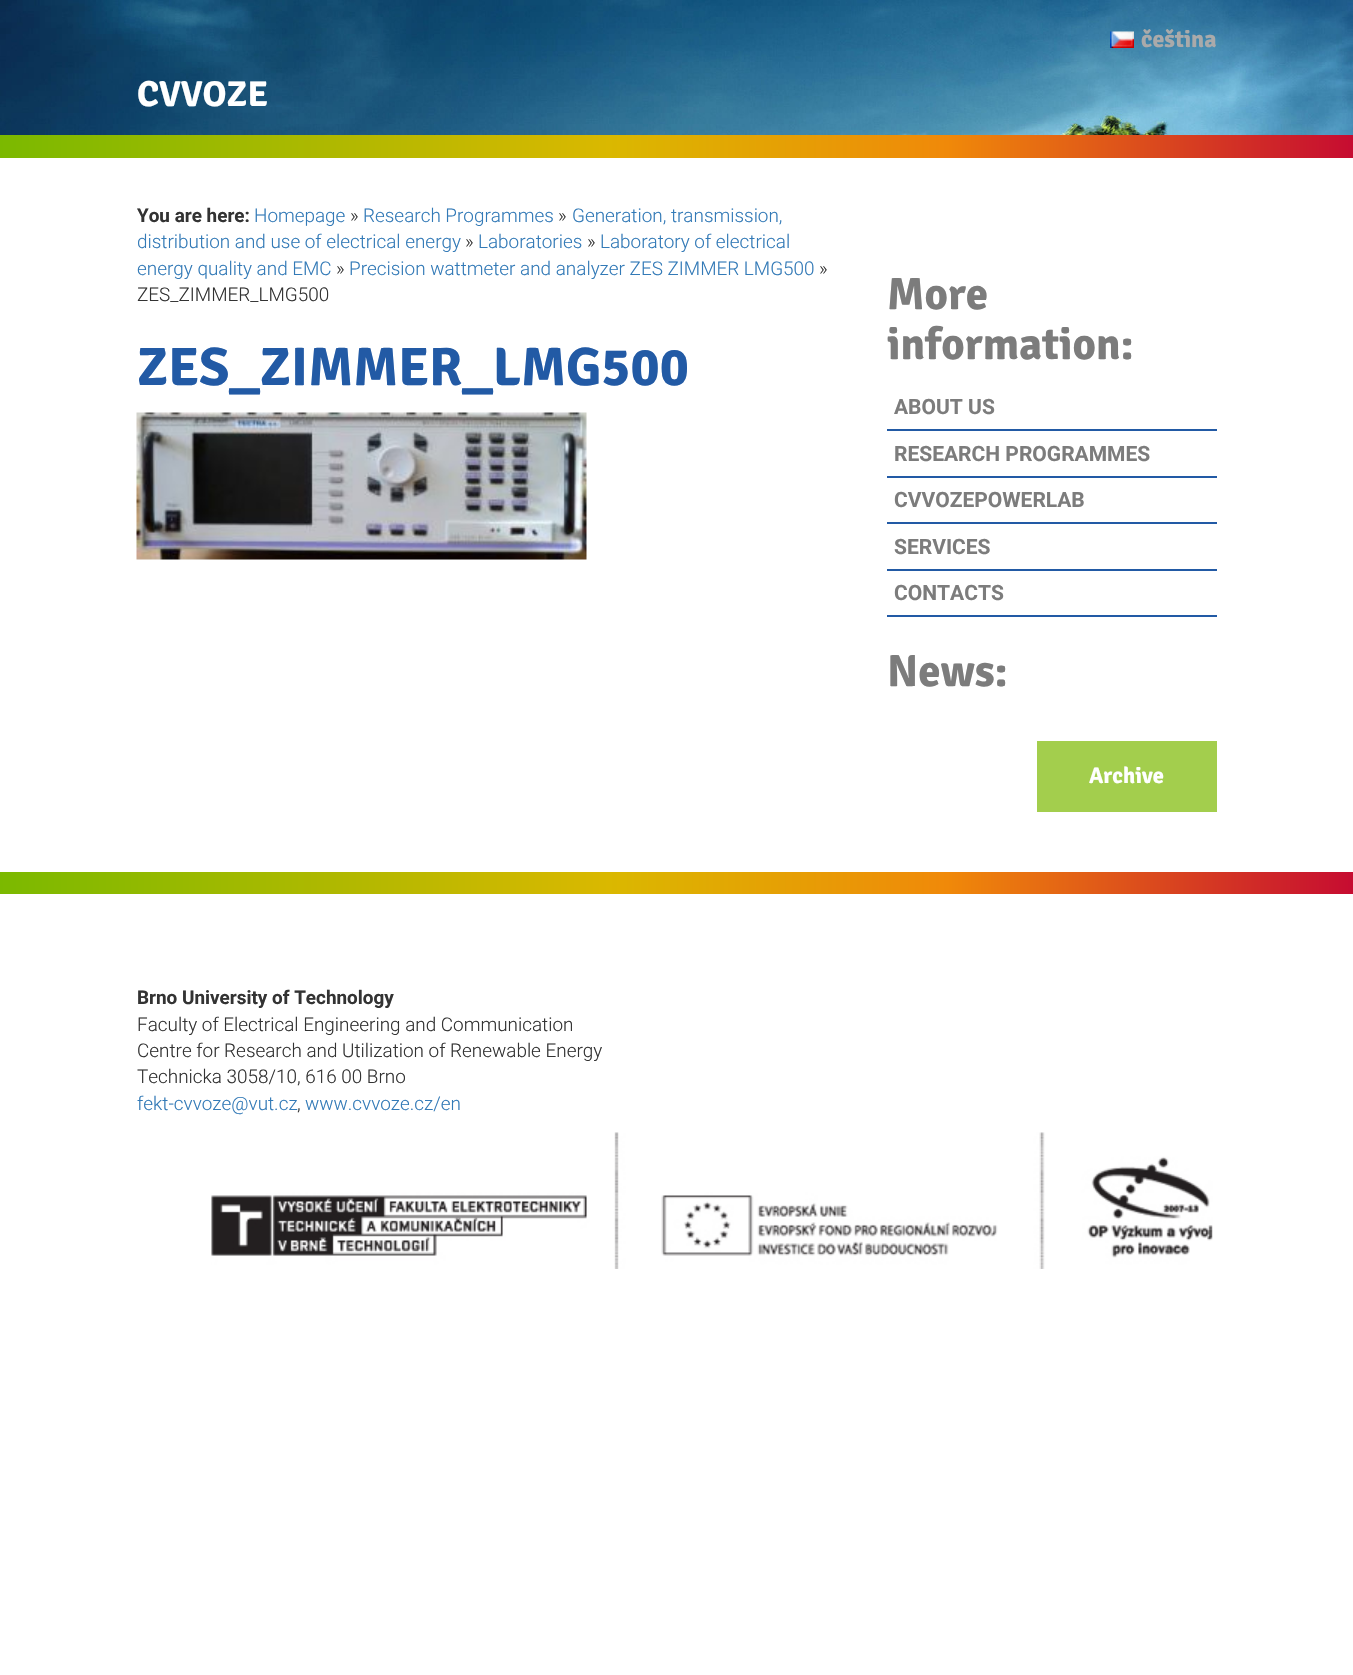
#include "include/core/SkBlurTypes.h"
#include "include/core/SkCanvas.h"
#include "include/core/SkData.h"
#include "include/core/SkFont.h"
#include "include/core/SkFontMgr.h"
#include "include/core/SkImage.h"
#include "include/core/SkMaskFilter.h"
#include "include/core/SkPaint.h"
#include "include/core/SkPathBuilder.h"
#include "include/core/SkTextBlob.h"
#include "include/effects/SkDashPathEffect.h"
#include "include/effects/SkGradientShader.h"
#include "include/utils/SkParsePath.h"

extern sk_sp<SkFontMgr> fontMgr;

void draw(SkCanvas* canvas) {
    SkPaint p;
    p.setAntiAlias(true);
    auto font = [&](const char* family, int weight, float size, bool italic = false) {
        SkFontStyle style(weight, SkFontStyle::kNormal_Width,
            italic ? SkFontStyle::kItalic_Slant : SkFontStyle::kUpright_Slant);
        SkFont result(fontMgr->matchFamilyStyle(family, style), size);
        result.setSubpixel(true);
        return result;
    };
    auto drawPhoto = [&](const char* path, float l, float t, float r, float b) {
        auto image = SkImages::DeferredFromEncodedData(SkData::MakeFromFileName(path));
        canvas->drawImageRect(image, SkRect::MakeLTRB(l, t, r, b), SkSamplingOptions());
    };
    canvas->clear(0xFFFFFFFF);
    drawPhoto("media/1.png", 0, 0, 1353, 135);
    drawPhoto("media/2.png", 1110, 31, 1134, 48);
    auto font1 = font("Signika", 300, 24);
    p.setColor(0xFFAAAAAA);
    canvas->drawString("čeština", 1141, 47, font1, p);
    auto font2 = font("Signika", 300, 36);
    p.setColor(0xFFFFFFFF);
    canvas->drawString("CVVOZE", 137, 106, font2, p);
    {
        const SkColor colors[] = {0xFF7BB900, 0xFFDAB800, 0xFFF08909, 0xFFC60C31};
        const float stops[] = {0, 0.45f, 0.7f, 1};
        const SkPoint ends[] = {{0, 146}, {1353, 146}};
        p.setShader(SkGradientShader::MakeLinear(ends, colors, stops, 4, SkTileMode::kClamp));
        p.setAlpha(255);
    }
    canvas->drawRect(SkRect::MakeLTRB(0, 135, 1353, 158), p);
    auto font3 = font("Roboto", 700, 18.9f);
    p.setShader(nullptr);
    p.setColor(0xFF333333);
    canvas->drawString("You are here:", 137, 222, font3, p);
    auto font4 = font("Roboto", 300, 18.9f);
    p.setColor(0xFF337AB7);
    canvas->drawString("Homepage", 254, 222, font4, p);
    p.setColor(0xFF333333);
    canvas->drawString("»", 350, 222, font4, p);
    p.setColor(0xFF337AB7);
    canvas->drawString("Research Programmes", 363, 222, font4, p);
    p.setColor(0xFF333333);
    canvas->drawString("»", 558, 222, font4, p);
    p.setColor(0xFF337AB7);
    canvas->drawString("Generation, transmission,", 572, 222, font4, p);
    canvas->drawString("distribution and use of electrical energy", 137, 248, font4, p);
    p.setColor(0xFF333333);
    canvas->drawString("»", 465, 248, font4, p);
    p.setColor(0xFF337AB7);
    canvas->drawString("Laboratories", 478, 248, font4, p);
    p.setColor(0xFF333333);
    canvas->drawString("»", 587, 248, font4, p);
    p.setColor(0xFF337AB7);
    canvas->drawString("Laboratory of electrical", 600, 248, font4, p);
    canvas->drawString("energy quality and EMC", 137, 275, font4, p);
    p.setColor(0xFF333333);
    canvas->drawString("»", 336, 275, font4, p);
    p.setColor(0xFF337AB7);
    canvas->drawString("Precision wattmeter and analyzer ZES ZIMMER LMG500", 349, 275, font4, p);
    p.setColor(0xFF333333);
    canvas->drawString("»", 819, 275, font4, p);
    canvas->drawString("ZES_ZIMMER_LMG500", 137, 301, font4, p);
    auto font5 = font("Signika", 300, 54);
    p.setColor(0xFF225AA5);
    canvas->drawString("ZES_ZIMMER_LMG500", 137, 385, font5, p);
    drawPhoto("media/3.png", 136, 412, 587, 560);
    auto font6 = font("Signika", 300, 45);
    p.setColor(0xFF7C7C7C);
    canvas->drawString("More", 887, 309, font6, p);
    canvas->drawString("information:", 887, 359, font6, p);
    p.setColor(0xFF225AA5);
    canvas->drawRect(SkRect::MakeLTRB(887, 429, 1217, 431), p);
    auto font7 = font("Roboto", 700, 21);
    p.setColor(0xFF7C7C7C);
    canvas->drawString("ABOUT US", 894, 414, font7, p);
    p.setColor(0xFF225AA5);
    canvas->drawRect(SkRect::MakeLTRB(887, 476, 1217, 478), p);
    p.setColor(0xFF7C7C7C);
    canvas->drawString("RESEARCH PROGRAMMES", 894, 461, font7, p);
    p.setColor(0xFF225AA5);
    canvas->drawRect(SkRect::MakeLTRB(887, 522, 1217, 524), p);
    p.setColor(0xFF7C7C7C);
    canvas->drawString("CVVOZEPOWERLAB", 894, 507, font7, p);
    p.setColor(0xFF225AA5);
    canvas->drawRect(SkRect::MakeLTRB(887, 569, 1217, 571), p);
    p.setColor(0xFF7C7C7C);
    canvas->drawString("SERVICES", 894, 554, font7, p);
    p.setColor(0xFF225AA5);
    canvas->drawRect(SkRect::MakeLTRB(887, 615, 1217, 617), p);
    p.setColor(0xFF7C7C7C);
    canvas->drawString("CONTACTS", 894, 600, font7, p);
    canvas->drawString("News:", 887, 686, font6, p);
    p.setColor(0xFFA3CE4D);
    canvas->drawRect(SkRect::MakeLTRB(1037, 741, 1217, 812), p);
    auto font8 = font("Signika", 300, 22.5f);
    p.setColor(0xFFFFFFFF);
    canvas->drawString("Archive", 1089, 783, font8, p);
    {
        const SkColor colors[] = {0xFF7BB900, 0xFFDAB800, 0xFFF08909, 0xFFC60C31};
        const float stops[] = {0, 0.45f, 0.7f, 1};
        const SkPoint ends[] = {{0, 883}, {1353, 883}};
        p.setShader(SkGradientShader::MakeLinear(ends, colors, stops, 4, SkTileMode::kClamp));
        p.setAlpha(255);
    }
    canvas->drawRect(SkRect::MakeLTRB(0, 872, 1353, 894), p);
    p.setShader(nullptr);
    p.setColor(0xFF333333);
    canvas->drawString("Brno University of Technology", 137, 1004, font3, p);
    {
        const struct { const char* s; float x, y; } items[] = {
            {"Faculty of Electrical Engineering and Communication", 137, 1031},
            {"Centre for Research and Utilization of Renewable Energy", 137, 1057},
            {"Technicka 3058/10, 616 00 Brno", 137, 1083},
        };
        for (auto [s, x, y] : items) {
            canvas->drawString(s, x, y, font4, p);
        }
    }
    p.setColor(0xFF337AB7);
    canvas->drawString("fekt-cvvoze@vut.cz", 137, 1110, font4, p);
    p.setColor(0xFF333333);
    canvas->drawString(",", 297, 1110, font4, p);
    p.setColor(0xFF337AB7);
    canvas->drawString("www.cvvoze.cz/en", 305, 1110, font4, p);
    drawPhoto("media/4.png", 211, 1132, 1213, 1269);
}
